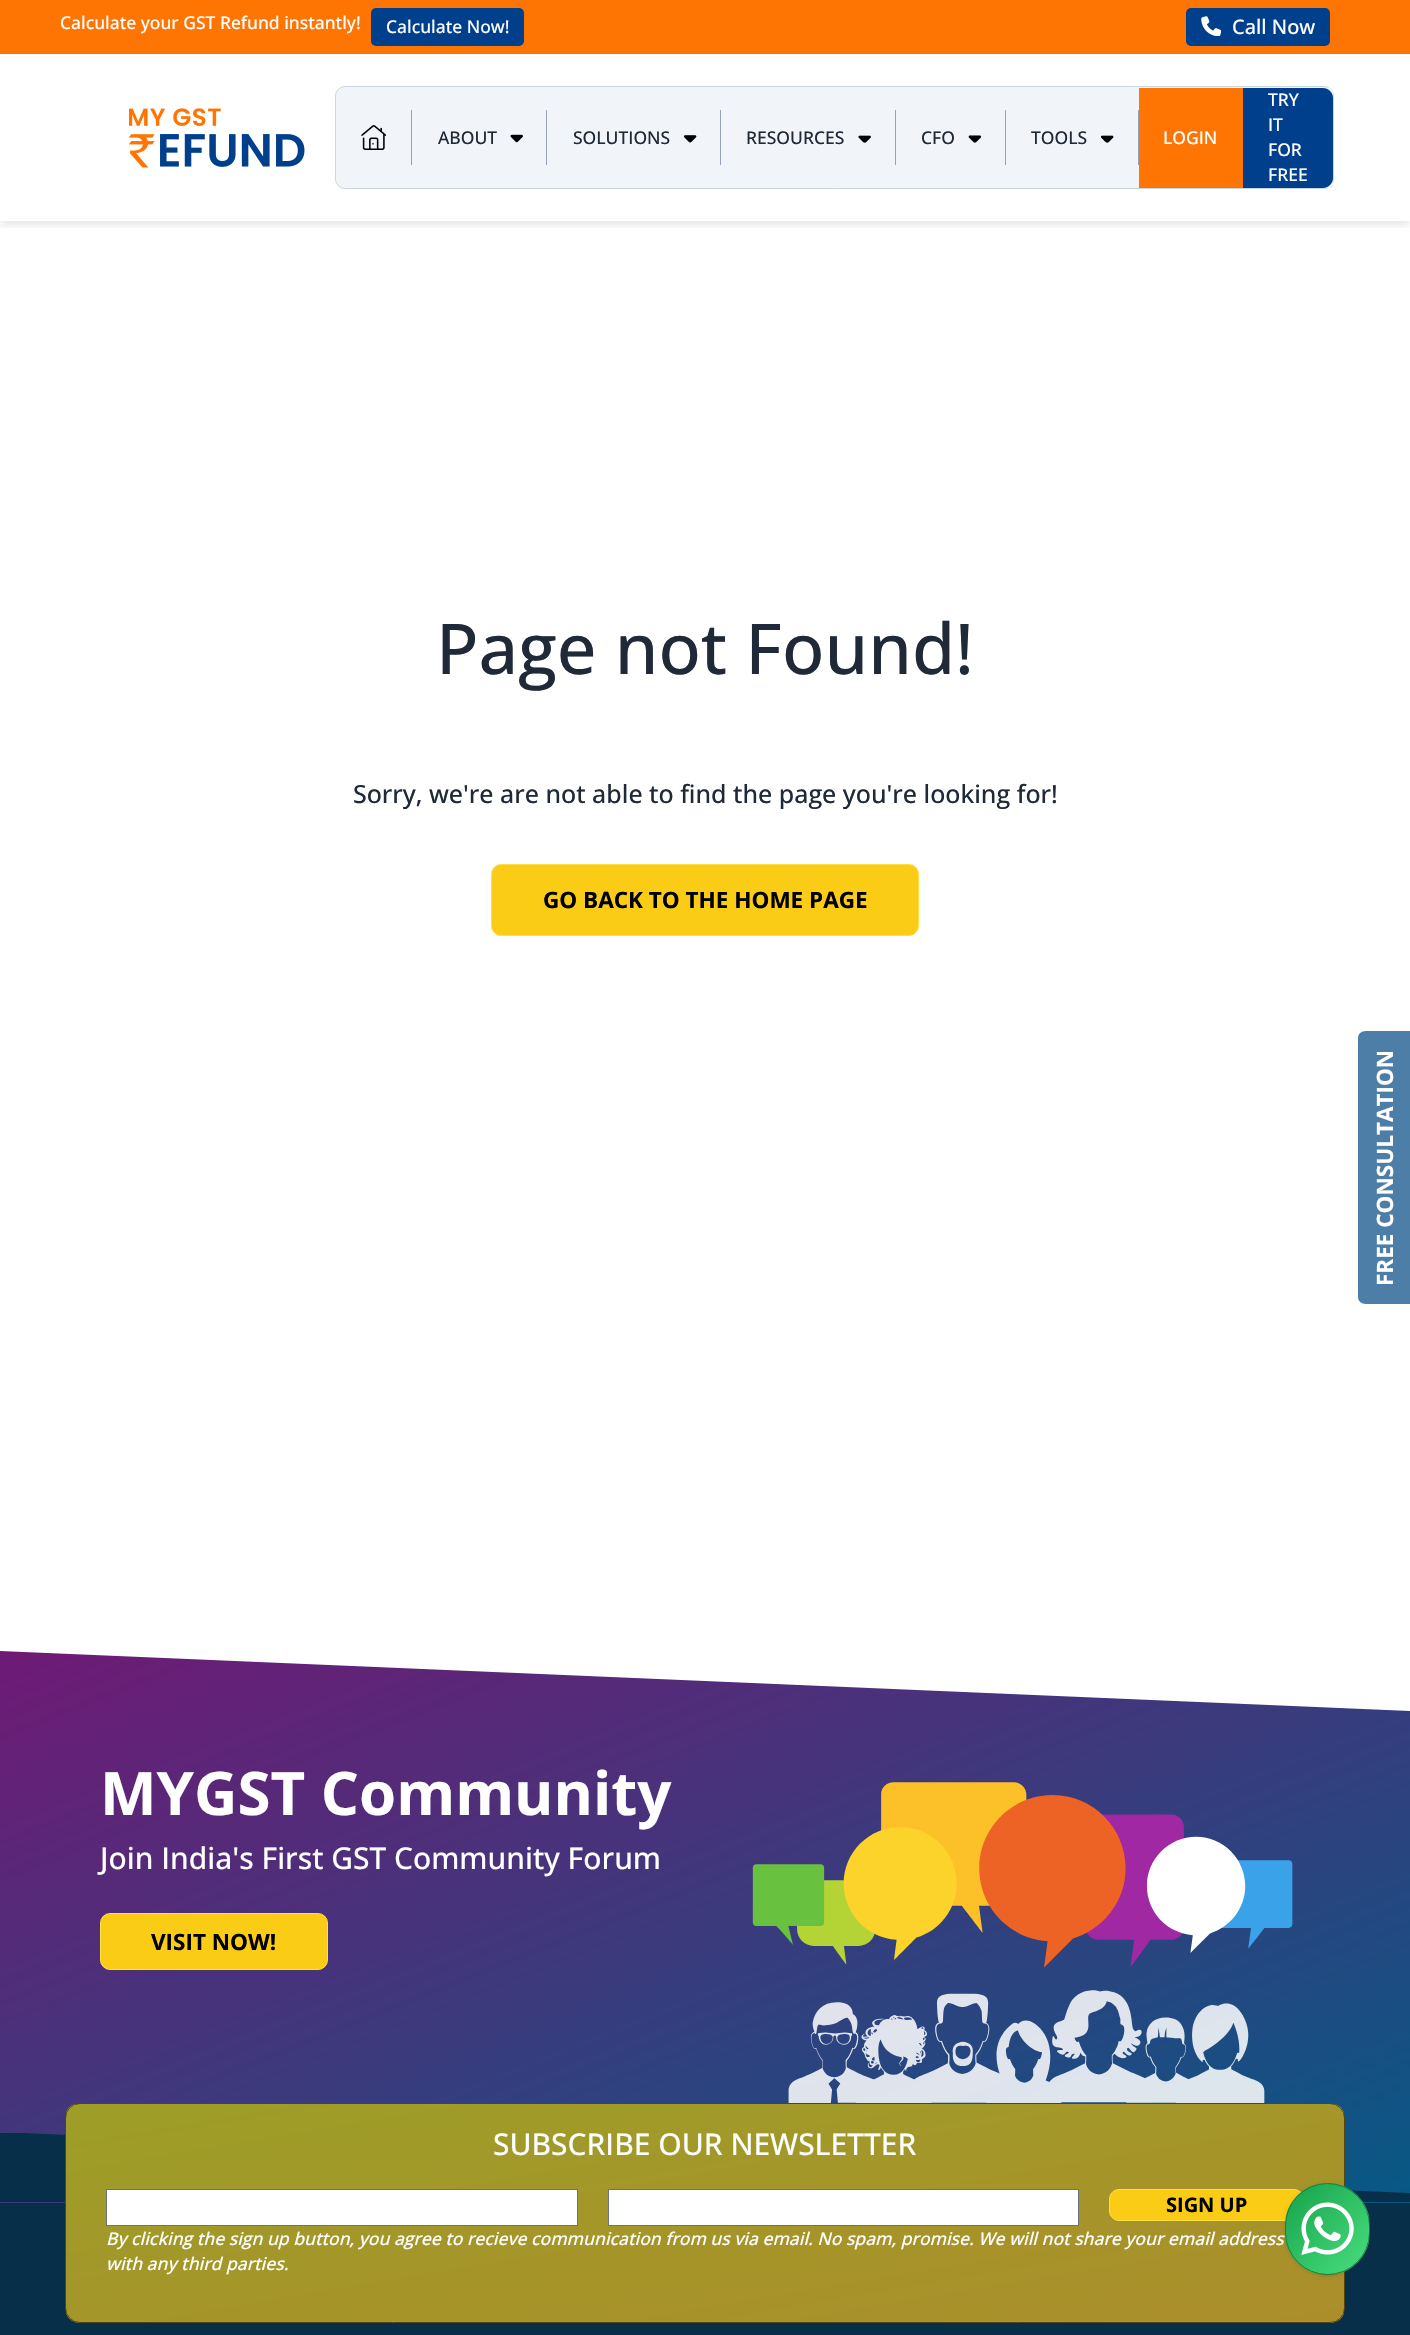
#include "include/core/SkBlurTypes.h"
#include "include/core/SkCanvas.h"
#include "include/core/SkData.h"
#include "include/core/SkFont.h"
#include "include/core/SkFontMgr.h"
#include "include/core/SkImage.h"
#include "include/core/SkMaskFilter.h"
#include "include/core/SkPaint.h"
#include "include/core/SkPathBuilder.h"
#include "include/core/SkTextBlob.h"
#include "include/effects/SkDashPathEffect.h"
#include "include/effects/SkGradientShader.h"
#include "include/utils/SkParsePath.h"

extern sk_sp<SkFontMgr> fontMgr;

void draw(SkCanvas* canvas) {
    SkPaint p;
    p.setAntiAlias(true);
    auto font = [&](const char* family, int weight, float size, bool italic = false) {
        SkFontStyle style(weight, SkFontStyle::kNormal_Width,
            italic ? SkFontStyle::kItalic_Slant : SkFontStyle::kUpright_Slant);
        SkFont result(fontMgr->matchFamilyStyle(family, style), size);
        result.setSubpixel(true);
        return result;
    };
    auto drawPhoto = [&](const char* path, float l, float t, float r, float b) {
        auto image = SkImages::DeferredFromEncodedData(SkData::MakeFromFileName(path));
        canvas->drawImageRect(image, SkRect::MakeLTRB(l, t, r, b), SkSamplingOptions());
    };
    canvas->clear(0xFFFFFFFF);
    p.setColor(0xFFFF7503);
    canvas->drawRect(SkRect::MakeLTRB(0, 0, 1410, 54), p);
    auto font1 = font("Open Sans", 500, 17.5f);
    p.setColor(0xFFFFFFFF);
    canvas->drawString("Calculate your GST Refund instantly!", 60, 29, font1, p);
    p.setColor(0xFF003F8C);
    canvas->drawRoundRect(SkRect::MakeLTRB(371, 8, 524, 46), 5, 5, p);
    p.setColor(0xFFFFFFFF);
    canvas->drawString("Calculate Now!", 386, 33, font1, p);
    p.setColor(0xFF003F8C);
    canvas->drawRoundRect(SkRect::MakeLTRB(1186, 8, 1330, 46), 5, 5, p);
    drawPhoto("media/1.png", 1201, 16, 1221, 36);
    auto font2 = font("Open Sans", 500, 20);
    p.setColor(0xFFFFFFFF);
    canvas->drawString("Call Now", 1232, 34, font2, p);
    canvas->save();
    canvas->clipRect(SkRect::MakeLTRB(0, 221, 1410, 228));
    p.setColor(0x1A000000);
    p.setMaskFilter(SkMaskFilter::MakeBlur(kNormal_SkBlurStyle, 4));
    canvas->drawRect(SkRect::MakeLTRB(1, 60, 1409, 225), p);
    p.setMaskFilter(nullptr);
    canvas->restore();
    drawPhoto("media/2.png", 129, 108, 305, 168);
    p.setColor(0xFFF1F5F9);
    canvas->drawRoundRect(SkRect::MakeLTRB(335.5f, 86.5f, 1333.5f, 188.5f), 9.5f, 9.5f, p);
    p.setStyle(SkPaint::kStroke_Style);
    p.setStrokeWidth(1);
    p.setColor(0xFFCBD5E1);
    canvas->drawRoundRect(SkRect::MakeLTRB(335.5f, 86.5f, 1333.5f, 188.5f), 9.5f, 9.5f, p);
    p.setStyle(SkPaint::kFill_Style);
    p.setColor(0xFFF1F5F9);
    canvas->drawRoundRect(SkRect::MakeLTRB(336, 88, 1333, 188), 10, 10, p);
    p.setColor(0xFF94A3B8);
    canvas->drawRect(SkRect::MakeLTRB(411, 110, 412, 165), p);
    drawPhoto("media/3.png", 361, 125, 386, 150);
    canvas->drawRect(SkRect::MakeLTRB(546, 110, 547, 165), p);
    p.setColor(0xFF1F2937);
    canvas->drawString("ABOUT", 438, 144, font1, p);
    drawPhoto("media/4.png", 510, 134, 523, 143);
    p.setColor(0xFF94A3B8);
    canvas->drawRect(SkRect::MakeLTRB(720, 110, 721, 165), p);
    p.setColor(0xFF1F2937);
    canvas->drawString("SOLUTIONS", 573, 144, font1, p);
    drawPhoto("media/5.png", 683, 135, 697, 143);
    p.setColor(0xFF94A3B8);
    canvas->drawRect(SkRect::MakeLTRB(895, 110, 896, 165), p);
    p.setColor(0xFF1F2937);
    canvas->drawString("RESOURCES", 746, 144, font1, p);
    drawPhoto("media/6.png", 858, 135, 871, 143);
    p.setColor(0xFF94A3B8);
    canvas->drawRect(SkRect::MakeLTRB(1005, 110, 1006, 165), p);
    p.setColor(0xFF1F2937);
    canvas->drawString("CFO", 921, 144, font1, p);
    drawPhoto("media/7.png", 968, 135, 982, 143);
    p.setColor(0xFF94A3B8);
    canvas->drawRect(SkRect::MakeLTRB(1138, 110, 1139, 165), p);
    p.setColor(0xFF1F2937);
    canvas->drawString("TOOLS", 1031, 144, font1, p);
    drawPhoto("media/8.png", 1101, 135, 1114, 143);
    p.setColor(0xFFF1F5F9);
    canvas->drawRect(SkRect::MakeLTRB(1326, 88, 1333, 188), p);
    p.setColor(0xFFFF7503);
    canvas->drawRect(SkRect::MakeLTRB(1139, 88, 1243, 188), p);
    p.setColor(0xFFFFFFFF);
    canvas->drawString("LOGIN", 1163, 144, font1, p);
    p.setColor(0xFF003F8C);
    canvas->drawPath(SkPathBuilder().moveTo(1243, 88).lineTo(1323, 88).cubicTo(1328.5f, 88, 1333, 92.5f, 1333, 98).lineTo(1333, 178).cubicTo(1333, 183.5f, 1328.5f, 188, 1323, 188).lineTo(1243, 188).close().detach(), p);
    p.setColor(0xFFFFFFFF);
    {
        const struct { const char* s; float x, y; } items[] = {
            {"TRY", 1268, 106},
            {"IT", 1268, 131},
            {"FOR", 1268, 156},
            {"FREE", 1268, 181},
        };
        for (auto [s, x, y] : items) {
            canvas->drawString(s, x, y, font1, p);
        }
    }
    auto font3 = font("Open Sans", 500, 70);
    p.setColor(0xFF1F2937);
    canvas->drawString("Page not Found!", 436, 674, font3, p);
    auto font4 = font("Open Sans", 500, 25);
    canvas->drawString("Sorry, we're are not able to find the page you're looking for!", 353, 803, font4, p);
    p.setColor(0xFFFACC15);
    canvas->drawRoundRect(SkRect::MakeLTRB(491.5f, 864.5f, 918.5f, 935.5f), 9.5f, 9.5f, p);
    p.setStyle(SkPaint::kStroke_Style);
    p.setColor(0xFFFDE047);
    canvas->drawRoundRect(SkRect::MakeLTRB(491.5f, 864.5f, 918.5f, 935.5f), 9.5f, 9.5f, p);
    auto font5 = font("Open Sans", 700, 22.5f);
    p.setStyle(SkPaint::kFill_Style);
    p.setColor(0xFF000000);
    canvas->drawString("GO BACK TO THE HOME PAGE", 543, 908, font5, p);
    {
        const SkColor colors[] = {0xFF701A75, 0xFF075985};
        const float stops[] = {0, 1};
        const SkPoint ends[] = {{513, 1439}, {897, 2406}};
        p.setShader(SkGradientShader::MakeLinear(ends, colors, stops, 2, SkTileMode::kClamp));
        p.setAlpha(255);
    }
    canvas->drawRect(SkRect::MakeLTRB(0, 1651, 1410, 2203), p);
    p.setShader(nullptr);
    p.setColor(0xFFFFFFFF);
    canvas->drawPath(SkPathBuilder().moveTo(1410, 1711).lineTo(0, 1651).lineTo(0, 1641).lineTo(1410, 1641).close().detach(), p);
    auto font6 = font("Open Sans", 700, 60);
    canvas->drawString("MYGST Community", 100, 1815, font6, p);
    auto font7 = font("Open Sans", 500, 30);
    canvas->drawString("Join India's First GST Community Forum", 100, 1869, font7, p);
    p.setColor(0xFFFACC15);
    canvas->drawRoundRect(SkRect::MakeLTRB(100.5f, 1913.5f, 327.5f, 1969.5f), 9.5f, 9.5f, p);
    p.setStyle(SkPaint::kStroke_Style);
    p.setColor(0xFFFDE047);
    canvas->drawRoundRect(SkRect::MakeLTRB(100.5f, 1913.5f, 327.5f, 1969.5f), 9.5f, 9.5f, p);
    p.setStyle(SkPaint::kFill_Style);
    p.setColor(0xFF000000);
    canvas->drawString("VISIT NOW!", 151, 1950, font5, p);
    drawPhoto("media/9.png", 752, 1782, 1293, 2103);
    canvas->save();
    canvas->clipRect(SkRect::MakeLTRB(0, 2133, 1410, 2203));
    p.setColor(0xFF082F49);
    canvas->drawPath(SkPathBuilder().moveTo(0, 2132).lineTo(1410, 2193).lineTo(1410, 2202).lineTo(0, 2202).close().detach(), p);
    canvas->restore();
    canvas->drawRect(SkRect::MakeLTRB(0, 2203, 1410, 2335), p);
    canvas->save();
    canvas->clipPath(SkPathBuilder().moveTo(80, 2103).lineTo(1330, 2103).cubicTo(1338.5f, 2103, 1345, 2109.5f, 1345, 2118).lineTo(1345, 2308).cubicTo(1345, 2316.5f, 1338.5f, 2323, 1330, 2323).lineTo(80, 2323).cubicTo(71.5f, 2323, 65, 2316.5f, 65, 2308).lineTo(65, 2118).cubicTo(65, 2109.5f, 71.5f, 2103, 80, 2103).close().detach(), true);
    {
        const SkColor colors[] = {0xFFAB8E2A, 0xFF9D9E28};
        const float stops[] = {0, 1};
        const SkPoint ends[] = {{741, 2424}, {669, 2001}};
        p.setShader(SkGradientShader::MakeLinear(ends, colors, stops, 2, SkTileMode::kClamp));
        p.setAlpha(255);
    }
    canvas->drawRect(SkRect::MakeLTRB(66, 2104, 1344, 2321), p);
    {
        const SkColor colors[] = {0xFFAB8E2A, 0xFF9D9E28};
        const float stops[] = {0, 1};
        const SkPoint ends[] = {{741, 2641}, {669, 2219}};
        p.setShader(SkGradientShader::MakeLinear(ends, colors, stops, 2, SkTileMode::kClamp));
        p.setAlpha(255);
    }
    canvas->drawRect(SkRect::MakeLTRB(66, 2321, 1344, 2323), p);
    canvas->restore();
    p.setStyle(SkPaint::kStroke_Style);
    p.setShader(nullptr);
    p.setColor(0xFF534615);
    canvas->drawRoundRect(SkRect::MakeLTRB(65.5f, 2103.5f, 1344.5f, 2322.5f), 14.5f, 14.5f, p);
    p.setStyle(SkPaint::kFill_Style);
    p.setColor(0xFFFFFFFF);
    canvas->drawString("SUBSCRIBE OUR NEWSLETTER", 493, 2155, font7, p);
    canvas->drawRect(SkRect::MakeLTRB(106.5f, 2189.5f, 577.5f, 2225.5f), p);
    p.setStyle(SkPaint::kStroke_Style);
    p.setColor(0xFF6B7280);
    canvas->drawRect(SkRect::MakeLTRB(106.5f, 2189.5f, 577.5f, 2225.5f), p);
    p.setStyle(SkPaint::kFill_Style);
    p.setColor(0xFFFFFFFF);
    canvas->drawRect(SkRect::MakeLTRB(608.5f, 2189.5f, 1078.5f, 2225.5f), p);
    p.setStyle(SkPaint::kStroke_Style);
    p.setColor(0xFF6B7280);
    canvas->drawRect(SkRect::MakeLTRB(608.5f, 2189.5f, 1078.5f, 2225.5f), p);
    p.setStyle(SkPaint::kFill_Style);
    p.setColor(0xFFFACC15);
    canvas->drawRoundRect(SkRect::MakeLTRB(1109.5f, 2189.5f, 1303.5f, 2220.5f), 9.5f, 9.5f, p);
    p.setStyle(SkPaint::kStroke_Style);
    p.setColor(0xFFFDE047);
    canvas->drawRoundRect(SkRect::MakeLTRB(1109.5f, 2189.5f, 1303.5f, 2220.5f), 9.5f, 9.5f, p);
    auto font8 = font("Open Sans", 700, 20);
    p.setStyle(SkPaint::kFill_Style);
    p.setColor(0xFF000000);
    canvas->drawString("SIGN UP", 1166, 2212, font8, p);
    auto font9 = font("Open Sans", 500, 17.5f, true);
    p.setColor(0xFFFFFFFF);
    canvas->drawString("By clicking the sign up button, you agree to recieve communication from us via email. No spam, promise. We will not share your email address", 106, 2245, font9, p);
    canvas->drawString("with any third parties.", 106, 2270, font9, p);
    p.setColor(0x1A000000);
    p.setMaskFilter(SkMaskFilter::MakeBlur(kNormal_SkBlurStyle, 1));
    canvas->drawRoundRect(SkRect::MakeLTRB(1286, 2185, 1369, 2275), 41.5f, 41.5f, p);
    p.setMaskFilter(nullptr);
    p.setMaskFilter(SkMaskFilter::MakeBlur(kNormal_SkBlurStyle, 2));
    canvas->drawRoundRect(SkRect::MakeLTRB(1285, 2184, 1370, 2276), 42.5f, 42.5f, p);
    p.setMaskFilter(nullptr);
    canvas->save();
    canvas->clipPath(SkPathBuilder().moveTo(1327.5f, 2183).cubicTo(1351, 2183, 1370, 2202, 1370, 2225.5f).lineTo(1370, 2232.5f).cubicTo(1370, 2256, 1351, 2275, 1327.5f, 2275).cubicTo(1304, 2275, 1285, 2256, 1285, 2232.5f).lineTo(1285, 2225.5f).cubicTo(1285, 2202, 1304, 2183, 1327.5f, 2183).close().detach(), true);
    {
        const SkColor colors[] = {0xFF16A34A, 0xFF4ADE80};
        const float stops[] = {0, 1};
        const SkPoint ends[] = {{1283, 2188}, {1372, 2270}};
        p.setShader(SkGradientShader::MakeLinear(ends, colors, stops, 2, SkTileMode::kClamp));
        p.setAlpha(255);
    }
    canvas->drawRect(SkRect::MakeLTRB(1286, 2184, 1369, 2274), p);
    canvas->restore();
    p.setStyle(SkPaint::kStroke_Style);
    p.setShader(nullptr);
    p.setColor(0xFF15803D);
    canvas->drawRoundRect(SkRect::MakeLTRB(1285.5f, 2183.5f, 1369.5f, 2274.5f), 42, 42, p);
    drawPhoto("media/10.png", 1301, 2202, 1354, 2255);
    p.setStyle(SkPaint::kFill_Style);
    p.setColor(0xFF4D7EA8);
    canvas->drawPath(SkPathBuilder().moveTo(1358, 1297).lineTo(1358, 1038).cubicTo(1358, 1034, 1361, 1031, 1366, 1031).lineTo(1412, 1031).lineTo(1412, 1304).lineTo(1366, 1304).cubicTo(1361, 1304, 1358, 1301, 1358, 1297).close().detach(), p);
    p.setColor(0xFFFFFFFF);
    canvas->save();
    canvas->rotate(-90, 1393, 1286);
    canvas->drawString("FREE CONSULTATION", 1393, 1286, font5, p);
    canvas->restore();
}
